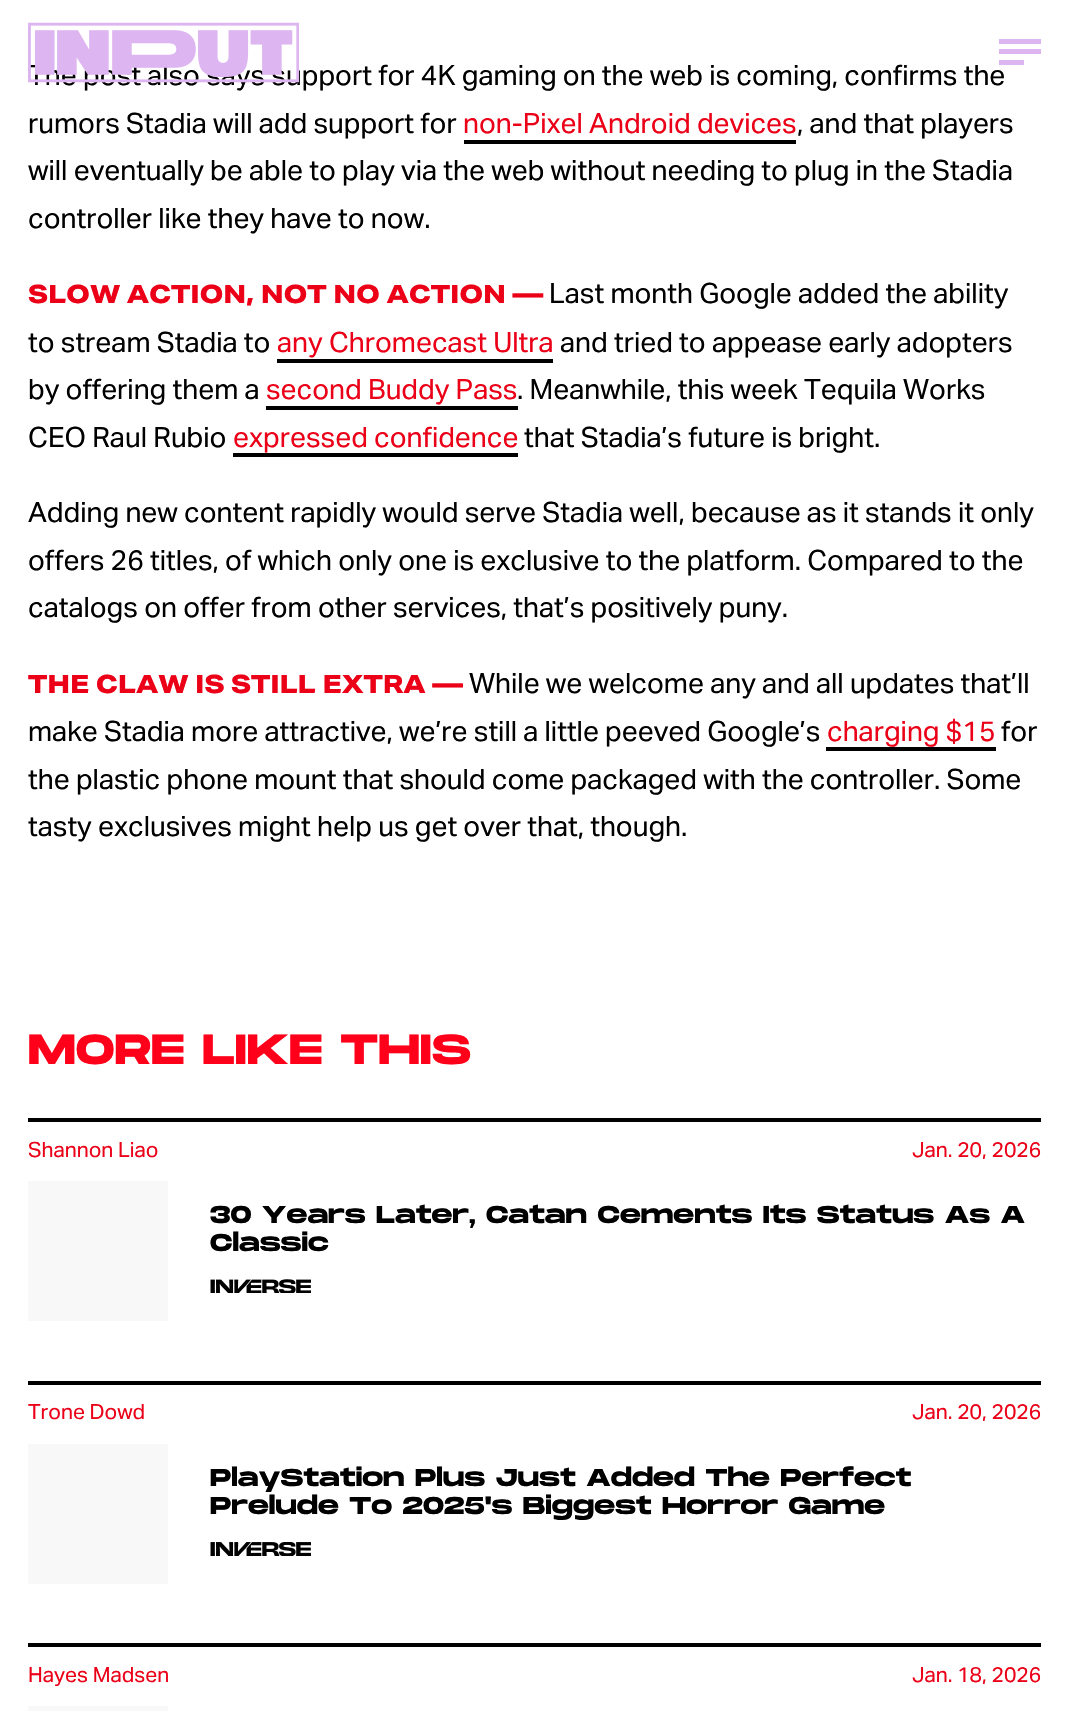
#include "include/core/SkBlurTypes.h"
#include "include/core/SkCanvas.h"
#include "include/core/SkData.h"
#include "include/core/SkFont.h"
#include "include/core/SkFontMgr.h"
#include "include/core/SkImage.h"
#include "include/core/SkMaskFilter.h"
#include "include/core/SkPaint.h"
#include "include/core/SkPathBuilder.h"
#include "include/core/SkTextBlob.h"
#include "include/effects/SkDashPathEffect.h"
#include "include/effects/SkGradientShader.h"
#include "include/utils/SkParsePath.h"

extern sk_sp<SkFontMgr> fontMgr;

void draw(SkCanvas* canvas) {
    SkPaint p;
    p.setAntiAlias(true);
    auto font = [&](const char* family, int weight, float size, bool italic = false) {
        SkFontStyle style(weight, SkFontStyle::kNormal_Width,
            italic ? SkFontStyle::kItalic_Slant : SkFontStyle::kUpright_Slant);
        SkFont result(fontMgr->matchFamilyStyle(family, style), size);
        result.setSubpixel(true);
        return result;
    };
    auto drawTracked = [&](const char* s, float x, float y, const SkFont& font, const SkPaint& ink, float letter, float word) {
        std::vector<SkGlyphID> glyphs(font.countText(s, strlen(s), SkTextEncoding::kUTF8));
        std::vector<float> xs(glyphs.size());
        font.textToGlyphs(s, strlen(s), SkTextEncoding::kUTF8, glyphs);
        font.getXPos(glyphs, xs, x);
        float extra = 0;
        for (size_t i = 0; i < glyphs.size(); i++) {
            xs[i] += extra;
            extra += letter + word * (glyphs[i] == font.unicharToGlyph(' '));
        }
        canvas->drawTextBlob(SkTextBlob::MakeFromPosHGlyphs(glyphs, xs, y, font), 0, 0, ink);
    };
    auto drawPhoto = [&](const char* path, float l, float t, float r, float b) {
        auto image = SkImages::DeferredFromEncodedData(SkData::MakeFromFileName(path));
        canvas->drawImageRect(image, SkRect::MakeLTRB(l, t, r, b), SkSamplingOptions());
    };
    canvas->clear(0xFFFFFFFF);
    auto font1 = font("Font", 400, 28);
    p.setColor(0xFF000000);
    canvas->drawString("The post also says support for 4K gaming on the web is coming, confirms the", 28, 85, font1, p);
    drawPhoto("media/1.png", 28, 22, 299, 83);
    {
        const struct { float l, t, r, b; SkColor color; } items[] = {
            {999, 39, 1041, 44, 0xFFDDB5F0},
            {999, 49, 1041, 54, 0xFFDDB5F0},
            {999, 60, 1024, 65, 0xFFDDB5F0},
        };
        for (auto [l, t, r, b, color] : items) {
            p.setColor(color);
            canvas->drawRect(SkRect::MakeLTRB(l, t, r, b), p);
        }
    }
    p.setColor(0xFF000000);
    canvas->drawString("rumors Stadia will add support for", 28, 133, font1, p);
    p.setColor(0xFFEB0017);
    canvas->drawString("non-Pixel Android devices", 463, 133, font1, p);
    p.setColor(0xFF000000);
    canvas->drawRect(SkRect::MakeLTRB(464, 140, 796, 144), p);
    {
        const struct { const char* s; float x, y; } items[] = {
            {", and that players", 797, 133},
            {"will eventually be able to play via the web without needing to plug in the Stadia", 28, 180},
            {"controller like they have to now.", 28, 228},
        };
        for (auto [s, x, y] : items) {
            canvas->drawString(s, x, y, font1, p);
        }
    }
    auto font2 = font("Font", 800, 25.2f);
    p.setColor(0xFFEB0017);
    drawTracked("SLOW ACTION, NOT NO ACTION —", 28, 303, font2, p, -0.15f, 0);
    p.setColor(0xFF000000);
    canvas->drawString("Last month Google added the ability", 549, 303, font1, p);
    canvas->drawString("to stream Stadia to", 28, 352, font1, p);
    p.setColor(0xFFEB0017);
    canvas->drawString("any Chromecast Ultra", 277, 352, font1, p);
    p.setColor(0xFF000000);
    canvas->drawRect(SkRect::MakeLTRB(277, 359, 553, 363), p);
    canvas->drawString("and tried to appease early adopters", 560, 352, font1, p);
    canvas->drawString("by offering them a", 28, 399, font1, p);
    p.setColor(0xFFEB0017);
    canvas->drawString("second Buddy Pass", 266, 399, font1, p);
    p.setColor(0xFF000000);
    canvas->drawRect(SkRect::MakeLTRB(266, 406, 518, 410), p);
    canvas->drawString(". Meanwhile, this week Tequila Works", 517, 399, font1, p);
    canvas->drawString("CEO Raul Rubio", 28, 447, font1, p);
    p.setColor(0xFFEB0017);
    canvas->drawString("expressed confidence", 233, 447, font1, p);
    p.setColor(0xFF000000);
    canvas->drawRect(SkRect::MakeLTRB(233, 453, 518, 457), p);
    {
        const struct { const char* s; float x, y; } items[] = {
            {"that Stadia’s future is bright.", 524, 447},
            {"Adding new content rapidly would serve Stadia well, because as it stands it only", 28, 522},
            {"offers 26 titles, of which only one is exclusive to the platform. Compared to the", 28, 570},
            {"catalogs on offer from other services, that’s positively puny.", 28, 617},
        };
        for (auto [s, x, y] : items) {
            canvas->drawString(s, x, y, font1, p);
        }
    }
    p.setColor(0xFFEB0017);
    drawTracked("THE CLAW IS STILL EXTRA —", 28, 693, font2, p, -0.15f, 0);
    p.setColor(0xFF000000);
    canvas->drawString("While we welcome any and all updates that’ll", 469, 693, font1, p);
    canvas->drawString("make Stadia more attractive, we’re still a little peeved Google’s", 28, 741, font1, p);
    p.setColor(0xFFEB0017);
    canvas->drawString("charging $15", 827, 741, font1, p);
    p.setColor(0xFF000000);
    canvas->drawRect(SkRect::MakeLTRB(826, 747, 996, 751), p);
    {
        const struct { const char* s; float x, y; } items[] = {
            {"for", 1001, 741},
            {"the plastic phone mount that should come packaged with the controller. Some", 28, 789},
            {"tasty exclusives might help us get over that, though.", 28, 836},
        };
        for (auto [s, x, y] : items) {
            canvas->drawString(s, x, y, font1, p);
        }
    }
    auto font3 = font("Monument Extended", 700, 42);
    p.setColor(0xFFFF001A);
    canvas->drawString("MORE LIKE THIS", 28, 1064, font3, p);
    p.setColor(0xFF000000);
    canvas->drawRect(SkRect::MakeLTRB(28, 1118, 1041, 1122), p);
    auto font4 = font("Font", 400, 21);
    p.setColor(0xFFEB0017);
    canvas->drawString("Shannon Liao", 28, 1157, font4, p);
    canvas->drawString("Jan. 20, 2026", 912, 1157, font4, p);
    p.setColor(0xFFF8F8F8);
    canvas->drawRect(SkRect::MakeLTRB(28, 1181, 168, 1321), p);
    auto font5 = font("Monument Extended", 700, 24.35f);
    p.setColor(0xFF000000);
    canvas->drawString("30 Years Later, Catan Cements Its Status As A", 210, 1223, font5, p);
    canvas->drawString("Classic", 210, 1251, font5, p);
    drawPhoto("media/2.png", 210, 1279, 311, 1293);
    canvas->drawRect(SkRect::MakeLTRB(28, 1381, 1041, 1385), p);
    p.setColor(0xFFEB0017);
    canvas->drawString("Trone Dowd", 28, 1419, font4, p);
    canvas->drawString("Jan. 20, 2026", 912, 1419, font4, p);
    p.setColor(0xFFF8F8F8);
    canvas->drawRect(SkRect::MakeLTRB(28, 1444, 168, 1584), p);
    p.setColor(0xFF000000);
    canvas->drawString("PlayStation Plus Just Added The Perfect", 210, 1486, font5, p);
    canvas->drawString("Prelude To 2025's Biggest Horror Game", 210, 1514, font5, p);
    drawPhoto("media/3.png", 210, 1542, 311, 1556);
    canvas->drawRect(SkRect::MakeLTRB(28, 1643, 1041, 1647), p);
    p.setColor(0xFFEB0017);
    canvas->drawString("Hayes Madsen", 28, 1682, font4, p);
    canvas->drawString("Jan. 18, 2026", 912, 1682, font4, p);
    p.setColor(0xFFF8F8F8);
    canvas->drawRect(SkRect::MakeLTRB(28, 1706, 168, 1711), p);
}
